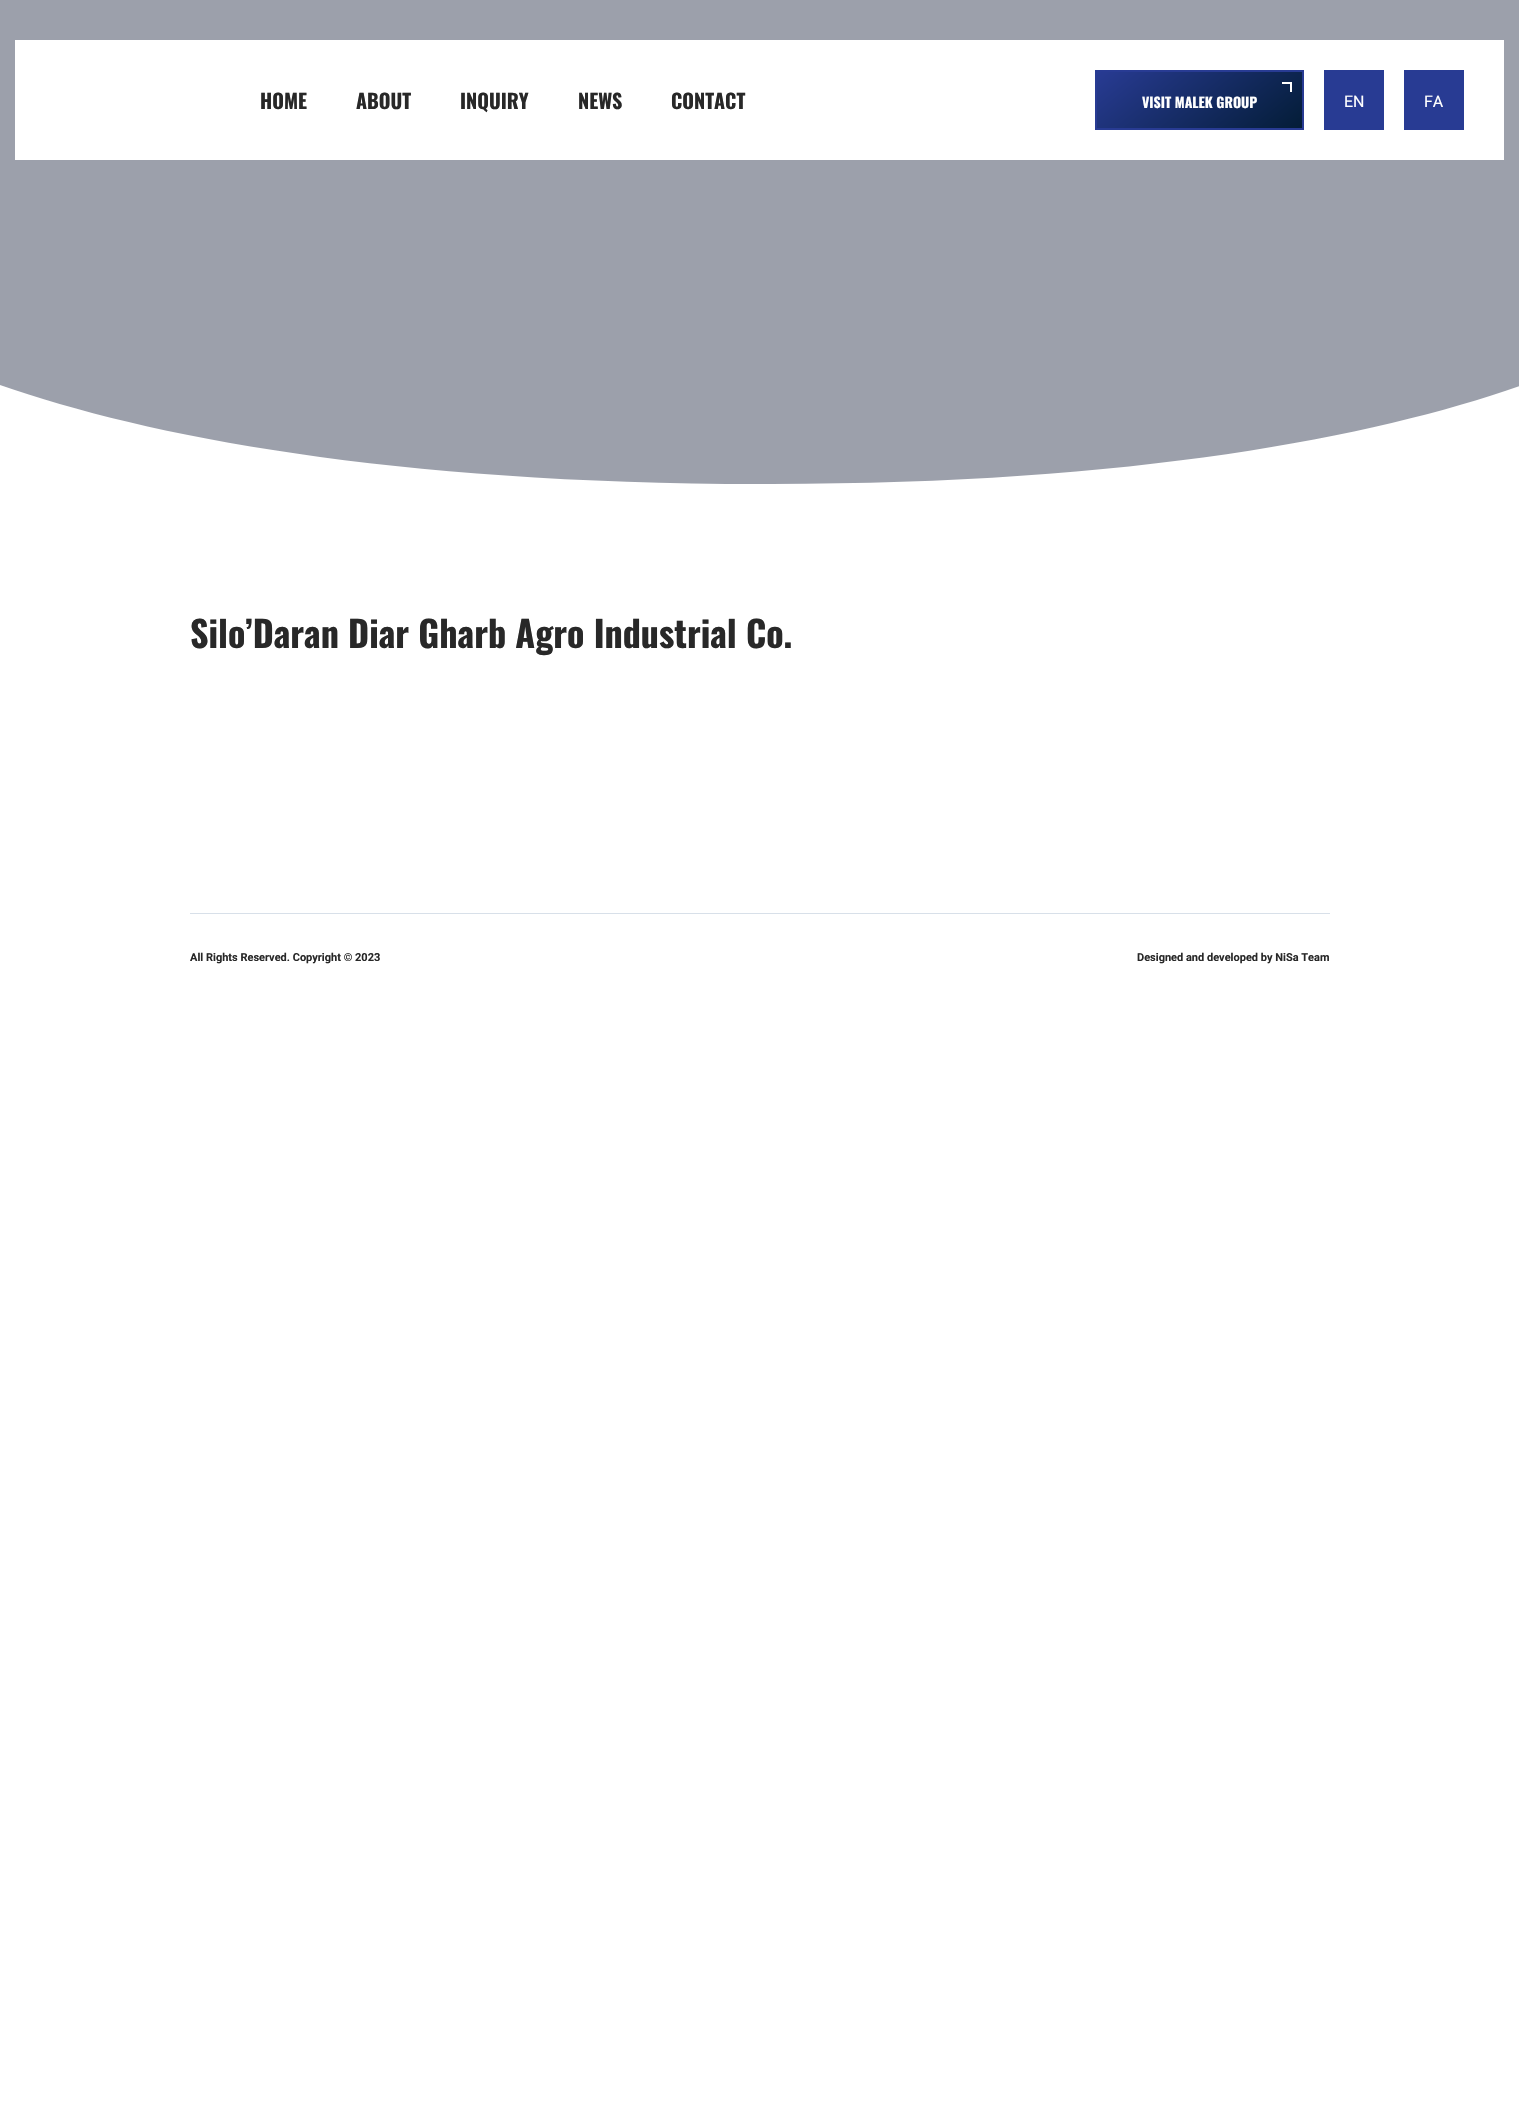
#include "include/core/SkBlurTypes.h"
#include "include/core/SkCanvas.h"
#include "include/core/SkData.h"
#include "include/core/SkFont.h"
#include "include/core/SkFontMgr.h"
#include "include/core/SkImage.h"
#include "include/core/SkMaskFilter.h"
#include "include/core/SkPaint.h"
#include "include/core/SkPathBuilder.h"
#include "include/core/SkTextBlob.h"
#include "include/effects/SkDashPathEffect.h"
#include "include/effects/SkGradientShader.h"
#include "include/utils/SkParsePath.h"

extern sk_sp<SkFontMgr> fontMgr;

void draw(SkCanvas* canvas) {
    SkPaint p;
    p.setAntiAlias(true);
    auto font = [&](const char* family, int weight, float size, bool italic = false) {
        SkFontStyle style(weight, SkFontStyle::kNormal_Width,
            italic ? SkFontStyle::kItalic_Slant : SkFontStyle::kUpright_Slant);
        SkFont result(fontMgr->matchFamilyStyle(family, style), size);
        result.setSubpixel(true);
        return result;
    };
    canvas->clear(0xFFFFFFFF);
    p.setColor(0xFF9CA0AB);
    canvas->drawRect(SkRect::MakeLTRB(0, 0, 1519, 484), p);
    p.setColor(0xFFFFFFFF);
    canvas->drawPath(SkPathBuilder().moveTo(760, 484).cubicTo(51, 483, -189, 311, -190, 266).lineTo(-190, 491).lineTo(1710, 491).lineTo(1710, 268).cubicTo(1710, 310, 1469, 486, 760, 484).close().detach(), p);
    canvas->drawRect(SkRect::MakeLTRB(15, 40, 1504, 160), p);
    auto font1 = font("Oswald", 700, 20);
    p.setColor(0xFF282828);
    {
        const struct { const char* s; float x, y; } items[] = {
            {"HOME", 260, 109},
            {"ABOUT", 356, 109},
            {"INQUIRY", 460, 109},
            {"NEWS", 578, 109},
            {"CONTACT", 671, 109},
        };
        for (auto [s, x, y] : items) {
            canvas->drawString(s, x, y, font1, p);
        }
    }
    {
        const SkColor colors[] = {0xFF283B93, 0xFF041D38};
        const float stops[] = {0, 0.99f};
        const SkPoint ends[] = {{1145, 33}, {1254, 167}};
        p.setShader(SkGradientShader::MakeLinear(ends, colors, stops, 2, SkTileMode::kClamp));
        p.setAlpha(255);
    }
    canvas->drawRect(SkRect::MakeLTRB(1097, 72, 1302, 128), p);
    p.setStyle(SkPaint::kStroke_Style);
    p.setStrokeWidth(2);
    p.setShader(nullptr);
    p.setColor(0xFF283B93);
    canvas->drawRect(SkRect::MakeLTRB(1096, 71, 1303, 129), p);
    p.setStyle(SkPaint::kFill_Style);
    p.setColor(0xFFFFFFFF);
    canvas->drawRect(SkRect::MakeLTRB(1282, 82, 1292, 84), p);
    canvas->drawRect(SkRect::MakeLTRB(1290, 82, 1292, 92), p);
    auto font2 = font("Oswald", 700, 14);
    canvas->drawString("VISIT MALEK GROUP", 1142, 108, font2, p);
    p.setColor(0xFF283B93);
    canvas->drawRect(SkRect::MakeLTRB(1324, 70, 1384, 130), p);
    auto font3 = font("Roboto", 400, 16);
    p.setColor(0xFFFFFFFF);
    canvas->drawString("EN", 1344, 107, font3, p);
    p.setColor(0xFF283B93);
    canvas->drawRect(SkRect::MakeLTRB(1404, 70, 1464, 130), p);
    p.setColor(0xFFFFFFFF);
    canvas->drawString("FA", 1424, 107, font3, p);
    auto font4 = font("Oswald", 700, 36);
    p.setColor(0xFF282828);
    canvas->drawString("Silo’Daran Diar Gharb Agro Industrial Co.", 190, 648, font4, p);
    p.setColor(0xFFD8E0E9);
    canvas->drawRect(SkRect::MakeLTRB(190, 913, 1330, 914), p);
    auto font5 = font("Roboto", 700, 11);
    p.setColor(0xFF282828);
    canvas->drawString("All Rights Reserved. Copyright © 2023", 190, 961, font5, p);
    canvas->drawString("Designed and developed by NiSa Team", 1137, 961, font5, p);
}
